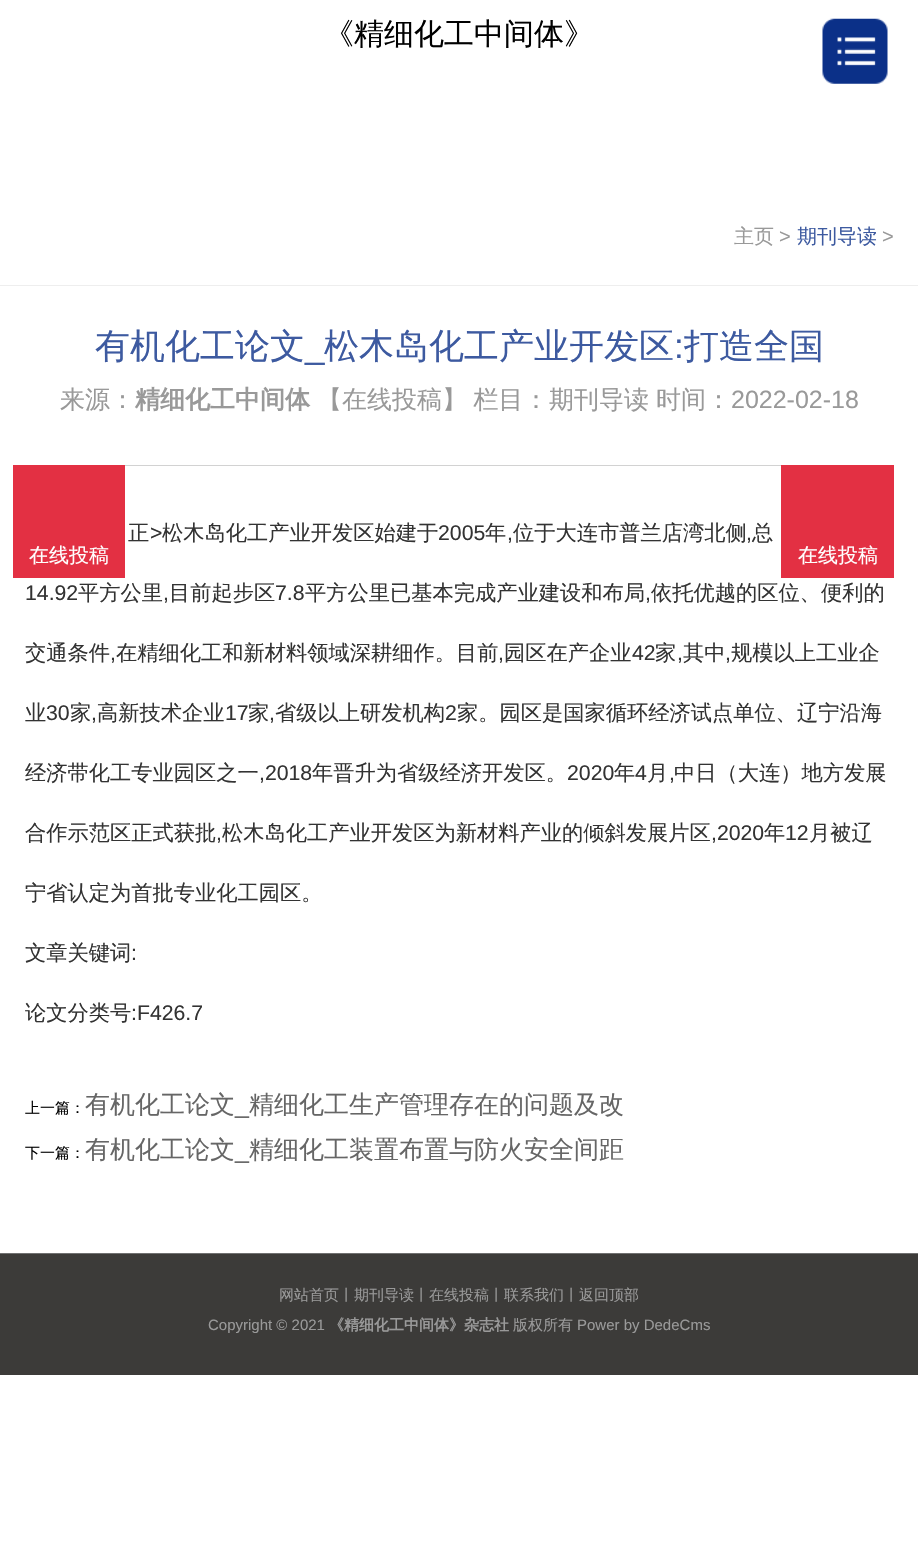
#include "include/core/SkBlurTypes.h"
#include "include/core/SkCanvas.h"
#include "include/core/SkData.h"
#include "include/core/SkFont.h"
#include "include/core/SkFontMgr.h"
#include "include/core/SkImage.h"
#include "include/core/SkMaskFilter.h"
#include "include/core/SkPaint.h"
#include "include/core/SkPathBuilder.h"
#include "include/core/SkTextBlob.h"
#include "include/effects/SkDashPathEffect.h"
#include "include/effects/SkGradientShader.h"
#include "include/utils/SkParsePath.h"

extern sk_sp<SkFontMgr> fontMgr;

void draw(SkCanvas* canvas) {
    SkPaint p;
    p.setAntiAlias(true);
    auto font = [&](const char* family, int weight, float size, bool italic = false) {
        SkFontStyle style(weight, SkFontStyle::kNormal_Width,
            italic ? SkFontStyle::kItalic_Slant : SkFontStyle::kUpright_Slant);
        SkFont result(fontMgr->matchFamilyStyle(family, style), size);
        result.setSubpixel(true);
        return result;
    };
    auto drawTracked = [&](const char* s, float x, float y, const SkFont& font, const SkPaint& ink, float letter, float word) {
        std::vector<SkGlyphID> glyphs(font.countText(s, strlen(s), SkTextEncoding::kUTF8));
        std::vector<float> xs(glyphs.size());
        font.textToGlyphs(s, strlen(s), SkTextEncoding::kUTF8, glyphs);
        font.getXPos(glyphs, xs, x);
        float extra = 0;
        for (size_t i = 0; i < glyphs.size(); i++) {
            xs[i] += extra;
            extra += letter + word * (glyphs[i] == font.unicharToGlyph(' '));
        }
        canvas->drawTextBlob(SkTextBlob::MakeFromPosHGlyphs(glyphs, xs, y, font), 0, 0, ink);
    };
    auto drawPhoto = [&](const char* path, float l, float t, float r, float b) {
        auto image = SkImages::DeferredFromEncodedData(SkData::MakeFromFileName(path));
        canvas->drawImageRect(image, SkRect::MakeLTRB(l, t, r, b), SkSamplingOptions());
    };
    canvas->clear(0xFFFFFFFF);
    auto font1 = font("WenQuanYi Zen Hei", 500, 30);
    p.setColor(0xFF000000);
    canvas->drawString("《精细化工中间体》", 324, 44, font1, p);
    drawPhoto("media/1.png", 822, 18, 888, 84);
    p.setColor(0xFFEEEEEE);
    canvas->drawRect(SkRect::MakeLTRB(0, 285, 918, 286), p);
    auto font2 = font("WenQuanYi Zen Hei", 500, 20);
    p.setColor(0xFF999999);
    canvas->drawString("主页", 734, 243, font2, p);
    auto font3 = font("Liberation Sans", 400, 20);
    canvas->drawString(">", 779, 243, font3, p);
    p.setColor(0xFF3D5AA0);
    canvas->drawString("期刊导读", 797, 243, font2, p);
    p.setColor(0xFF999999);
    canvas->drawString(">", 882, 243, font3, p);
    p.setColor(0xFFD2D2D2);
    canvas->drawRect(SkRect::MakeLTRB(125, 465, 781, 466), p);
    auto font4 = font("WenQuanYi Zen Hei", 500, 35);
    p.setColor(0xFF3D5AA0);
    canvas->drawString("有机化工论文", 95, 358, font4, p);
    canvas->drawString("松木岛化工产业开发区", 324, 358, font4, p);
    auto font5 = font("Liberation Sans", 400, 35);
    canvas->drawString(":", 674, 358, font5, p);
    canvas->drawString("打造全国", 684, 358, font4, p);
    canvas->drawString("_", 305, 358, font5, p);
    auto font6 = font("WenQuanYi Zen Hei", 500, 25);
    p.setColor(0xFF999999);
    canvas->drawString("来源：", 60, 408, font6, p);
    auto font7 = font("WenQuanYi Zen Hei", 700, 25);
    canvas->drawString("精细化工中间体", 135, 408, font7, p);
    drawTracked("【在线投稿】 栏目：", 317, 408, font6, p, 0, -1);
    canvas->drawString("期刊导读", 549, 408, font6, p);
    canvas->drawString("时间：", 656, 408, font6, p);
    auto font8 = font("Liberation Sans", 400, 25);
    canvas->drawString("2022-02-18", 731, 408, font8, p);
    auto font9 = font("WenQuanYi Zen Hei", 500, 21.25f);
    p.setColor(0xFF333333);
    canvas->drawString("正", 128, 540, font9, p);
    auto font10 = font("Liberation Sans", 400, 21.25f);
    canvas->drawString(">", 150, 540, font10, p);
    canvas->drawString("松木岛化工产业开发区始建于", 162, 540, font9, p);
    canvas->drawString("2005", 438, 540, font10, p);
    {
        const struct { const char* s; float x, y; } items[] = {
            {"年", 485, 540},
            {"位于大连市普兰店湾北侧", 513, 540},
            {"总", 752, 540},
        };
        for (auto [s, x, y] : items) {
            canvas->drawString(s, x, y, font9, p);
        }
    }
    {
        const struct { const char* s; float x, y; } items[] = {
            {",", 507, 540},
            {",", 746, 540},
            {"14.92", 25, 600},
        };
        for (auto [s, x, y] : items) {
            canvas->drawString(s, x, y, font10, p);
        }
    }
    canvas->drawString("平方公里", 78, 600, font9, p);
    canvas->drawString(",", 163, 600, font10, p);
    canvas->drawString("目前起步区", 169, 600, font9, p);
    canvas->drawString("7.8", 275, 600, font10, p);
    canvas->drawString("平方公里已基本完成产业建设和布局", 305, 600, font9, p);
    canvas->drawString(",", 645, 600, font10, p);
    canvas->drawString("依托优越的区位、便利的", 651, 600, font9, p);
    canvas->drawString("交通条件", 25, 660, font9, p);
    canvas->drawString(",", 110, 660, font10, p);
    canvas->drawString("在精细化工和新材料领域深耕细作。目前", 116, 660, font9, p);
    canvas->drawString(",", 498, 660, font10, p);
    canvas->drawString("园区在产企业", 504, 660, font9, p);
    canvas->drawString("42", 632, 660, font10, p);
    canvas->drawString("家", 655, 660, font9, p);
    canvas->drawString(",", 677, 660, font10, p);
    canvas->drawString("其中", 683, 660, font9, p);
    canvas->drawString(",", 725, 660, font10, p);
    canvas->drawString("规模以上工业企", 731, 660, font9, p);
    canvas->drawString("业", 25, 720, font9, p);
    canvas->drawString("30", 46, 720, font10, p);
    canvas->drawString("家", 70, 720, font9, p);
    canvas->drawString(",", 91, 720, font10, p);
    canvas->drawString("高新技术企业", 97, 720, font9, p);
    canvas->drawString("17", 225, 720, font10, p);
    canvas->drawString("家", 248, 720, font9, p);
    canvas->drawString(",", 269, 720, font10, p);
    canvas->drawString("省级以上研发机构", 275, 720, font9, p);
    canvas->drawString("2", 445, 720, font10, p);
    canvas->drawString("家。园区是国家循环经济试点单位、辽宁沿海", 457, 720, font9, p);
    canvas->drawString("经济带化工专业园区之一", 25, 780, font9, p);
    canvas->drawString(",2018", 259, 780, font10, p);
    canvas->drawString("年晋升为省级经济开发区。", 312, 780, font9, p);
    canvas->drawString("2020", 567, 780, font10, p);
    canvas->drawString("年", 614, 780, font9, p);
    canvas->drawString("4", 635, 780, font10, p);
    canvas->drawString("月", 647, 780, font9, p);
    canvas->drawString(",", 669, 780, font10, p);
    canvas->drawString("中日（大连）地方发展", 674, 780, font9, p);
    canvas->drawString("合作示范区正式获批", 25, 840, font9, p);
    canvas->drawString(",", 216, 840, font10, p);
    canvas->drawString("松木岛化工产业开发区为新材料产业的倾斜发展片区", 222, 840, font9, p);
    canvas->drawString(",2020", 711, 840, font10, p);
    canvas->drawString("年", 764, 840, font9, p);
    canvas->drawString("12", 785, 840, font10, p);
    {
        const struct { const char* s; float x, y; } items[] = {
            {"月被辽", 809, 840},
            {"宁省认定为首批专业化工园区。", 25, 900},
            {"文章关键词", 25, 960},
        };
        for (auto [s, x, y] : items) {
            canvas->drawString(s, x, y, font9, p);
        }
    }
    canvas->drawString(":", 131, 960, font10, p);
    canvas->drawString("论文分类号", 25, 1020, font9, p);
    canvas->drawString(":F426.7", 131, 1020, font10, p);
    auto font11 = font("WenQuanYi Zen Hei", 500, 15);
    p.setColor(0xFF000000);
    canvas->drawString("上一篇：", 25, 1113, font11, p);
    p.setColor(0xFF666666);
    canvas->drawString("有机化工论文", 85, 1113, font6, p);
    canvas->drawString("_", 235, 1113, font8, p);
    canvas->drawString("精细化工生产管理存在的问题及改", 249, 1113, font6, p);
    p.setColor(0xFF000000);
    canvas->drawString("下一篇：", 25, 1158, font11, p);
    p.setColor(0xFF666666);
    canvas->drawString("有机化工论文", 85, 1158, font6, p);
    canvas->drawString("_", 235, 1158, font8, p);
    canvas->drawString("精细化工装置布置与防火安全间距", 249, 1158, font6, p);
    p.setColor(0xFF3C3B39);
    canvas->drawRect(SkRect::MakeLTRB(0, 1254, 918, 1375), p);
    p.setColor(0xFF707070);
    canvas->drawRect(SkRect::MakeLTRB(0, 1253, 918, 1254), p);
    p.setColor(0xFF999999);
    canvas->drawString("网站首页丨期刊导读丨在线投稿丨联系我们丨返回顶部", 279, 1300, font11, p);
    auto font12 = font("Liberation Sans", 400, 15);
    canvas->drawString("Copyright © 2021", 208, 1330, font12, p);
    auto font13 = font("WenQuanYi Zen Hei", 700, 15);
    canvas->drawString("《精细化工中间体》杂志社", 329, 1330, font13, p);
    canvas->drawString("版权所有", 513, 1330, font11, p);
    canvas->drawString("Power by DedeCms", 577, 1330, font12, p);
    p.setColor(0xFFE33043);
    canvas->drawRect(SkRect::MakeLTRB(13, 465, 125, 578), p);
    p.setColor(0xFFFFFFFF);
    canvas->drawString("在线投稿", 29, 562, font2, p);
    p.setColor(0xFFE33043);
    canvas->drawRect(SkRect::MakeLTRB(781, 465, 894, 578), p);
    p.setColor(0xFFFFFFFF);
    canvas->drawString("在线投稿", 798, 562, font2, p);
}
